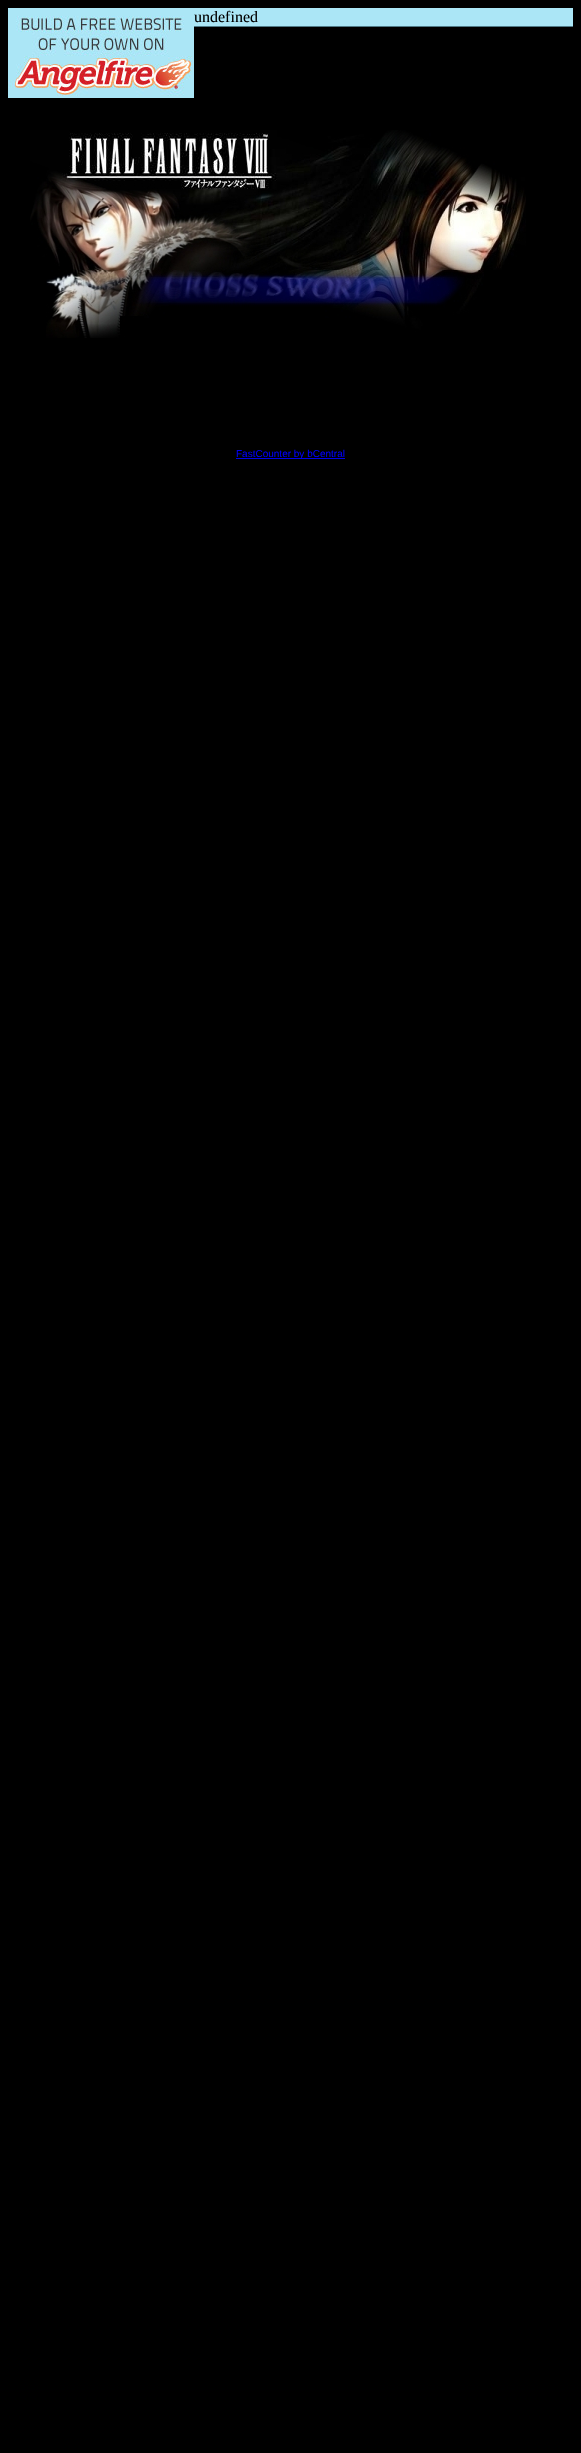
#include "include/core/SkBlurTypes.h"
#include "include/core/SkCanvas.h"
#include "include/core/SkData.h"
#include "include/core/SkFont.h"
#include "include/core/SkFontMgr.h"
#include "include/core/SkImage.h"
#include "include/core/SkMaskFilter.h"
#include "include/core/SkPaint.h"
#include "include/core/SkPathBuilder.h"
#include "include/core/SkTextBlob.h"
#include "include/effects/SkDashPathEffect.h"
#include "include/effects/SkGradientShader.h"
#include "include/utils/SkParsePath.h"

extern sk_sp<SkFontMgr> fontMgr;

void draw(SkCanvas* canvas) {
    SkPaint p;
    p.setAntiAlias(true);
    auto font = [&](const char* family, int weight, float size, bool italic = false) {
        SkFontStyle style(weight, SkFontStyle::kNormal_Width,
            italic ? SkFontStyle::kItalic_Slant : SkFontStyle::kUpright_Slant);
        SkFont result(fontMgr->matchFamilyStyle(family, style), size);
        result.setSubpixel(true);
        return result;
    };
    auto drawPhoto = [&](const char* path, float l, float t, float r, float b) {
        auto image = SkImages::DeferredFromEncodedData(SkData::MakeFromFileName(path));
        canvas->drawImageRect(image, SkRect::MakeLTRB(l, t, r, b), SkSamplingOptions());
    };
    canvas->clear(0xFF000000);
    p.setColor(0xFFABE6F6);
    canvas->drawRect(SkRect::MakeLTRB(8, 8, 573, 26), p);
    p.setColor(0xFF507A87);
    canvas->drawRect(SkRect::MakeLTRB(194, 26, 573, 27), p);
    drawPhoto("media/1.png", 8, 16, 194, 98);
    auto font1 = font("Liberation Serif", 400, 16);
    p.setColor(0xFF000000);
    canvas->drawString("undefined", 194, 22, font1, p);
    drawPhoto("media/2.png", 30, 130, 526, 270);
    drawPhoto("media/3.png", 46, 270, 484, 338);
    p.setColor(0xFF0000EE);
    canvas->drawRect(SkRect::MakeLTRB(236, 458, 345, 459), p);
    auto font2 = font("Liberation Sans", 400, 10);
    canvas->drawString("FastCounter by bCentral", 236, 457, font2, p);
}
